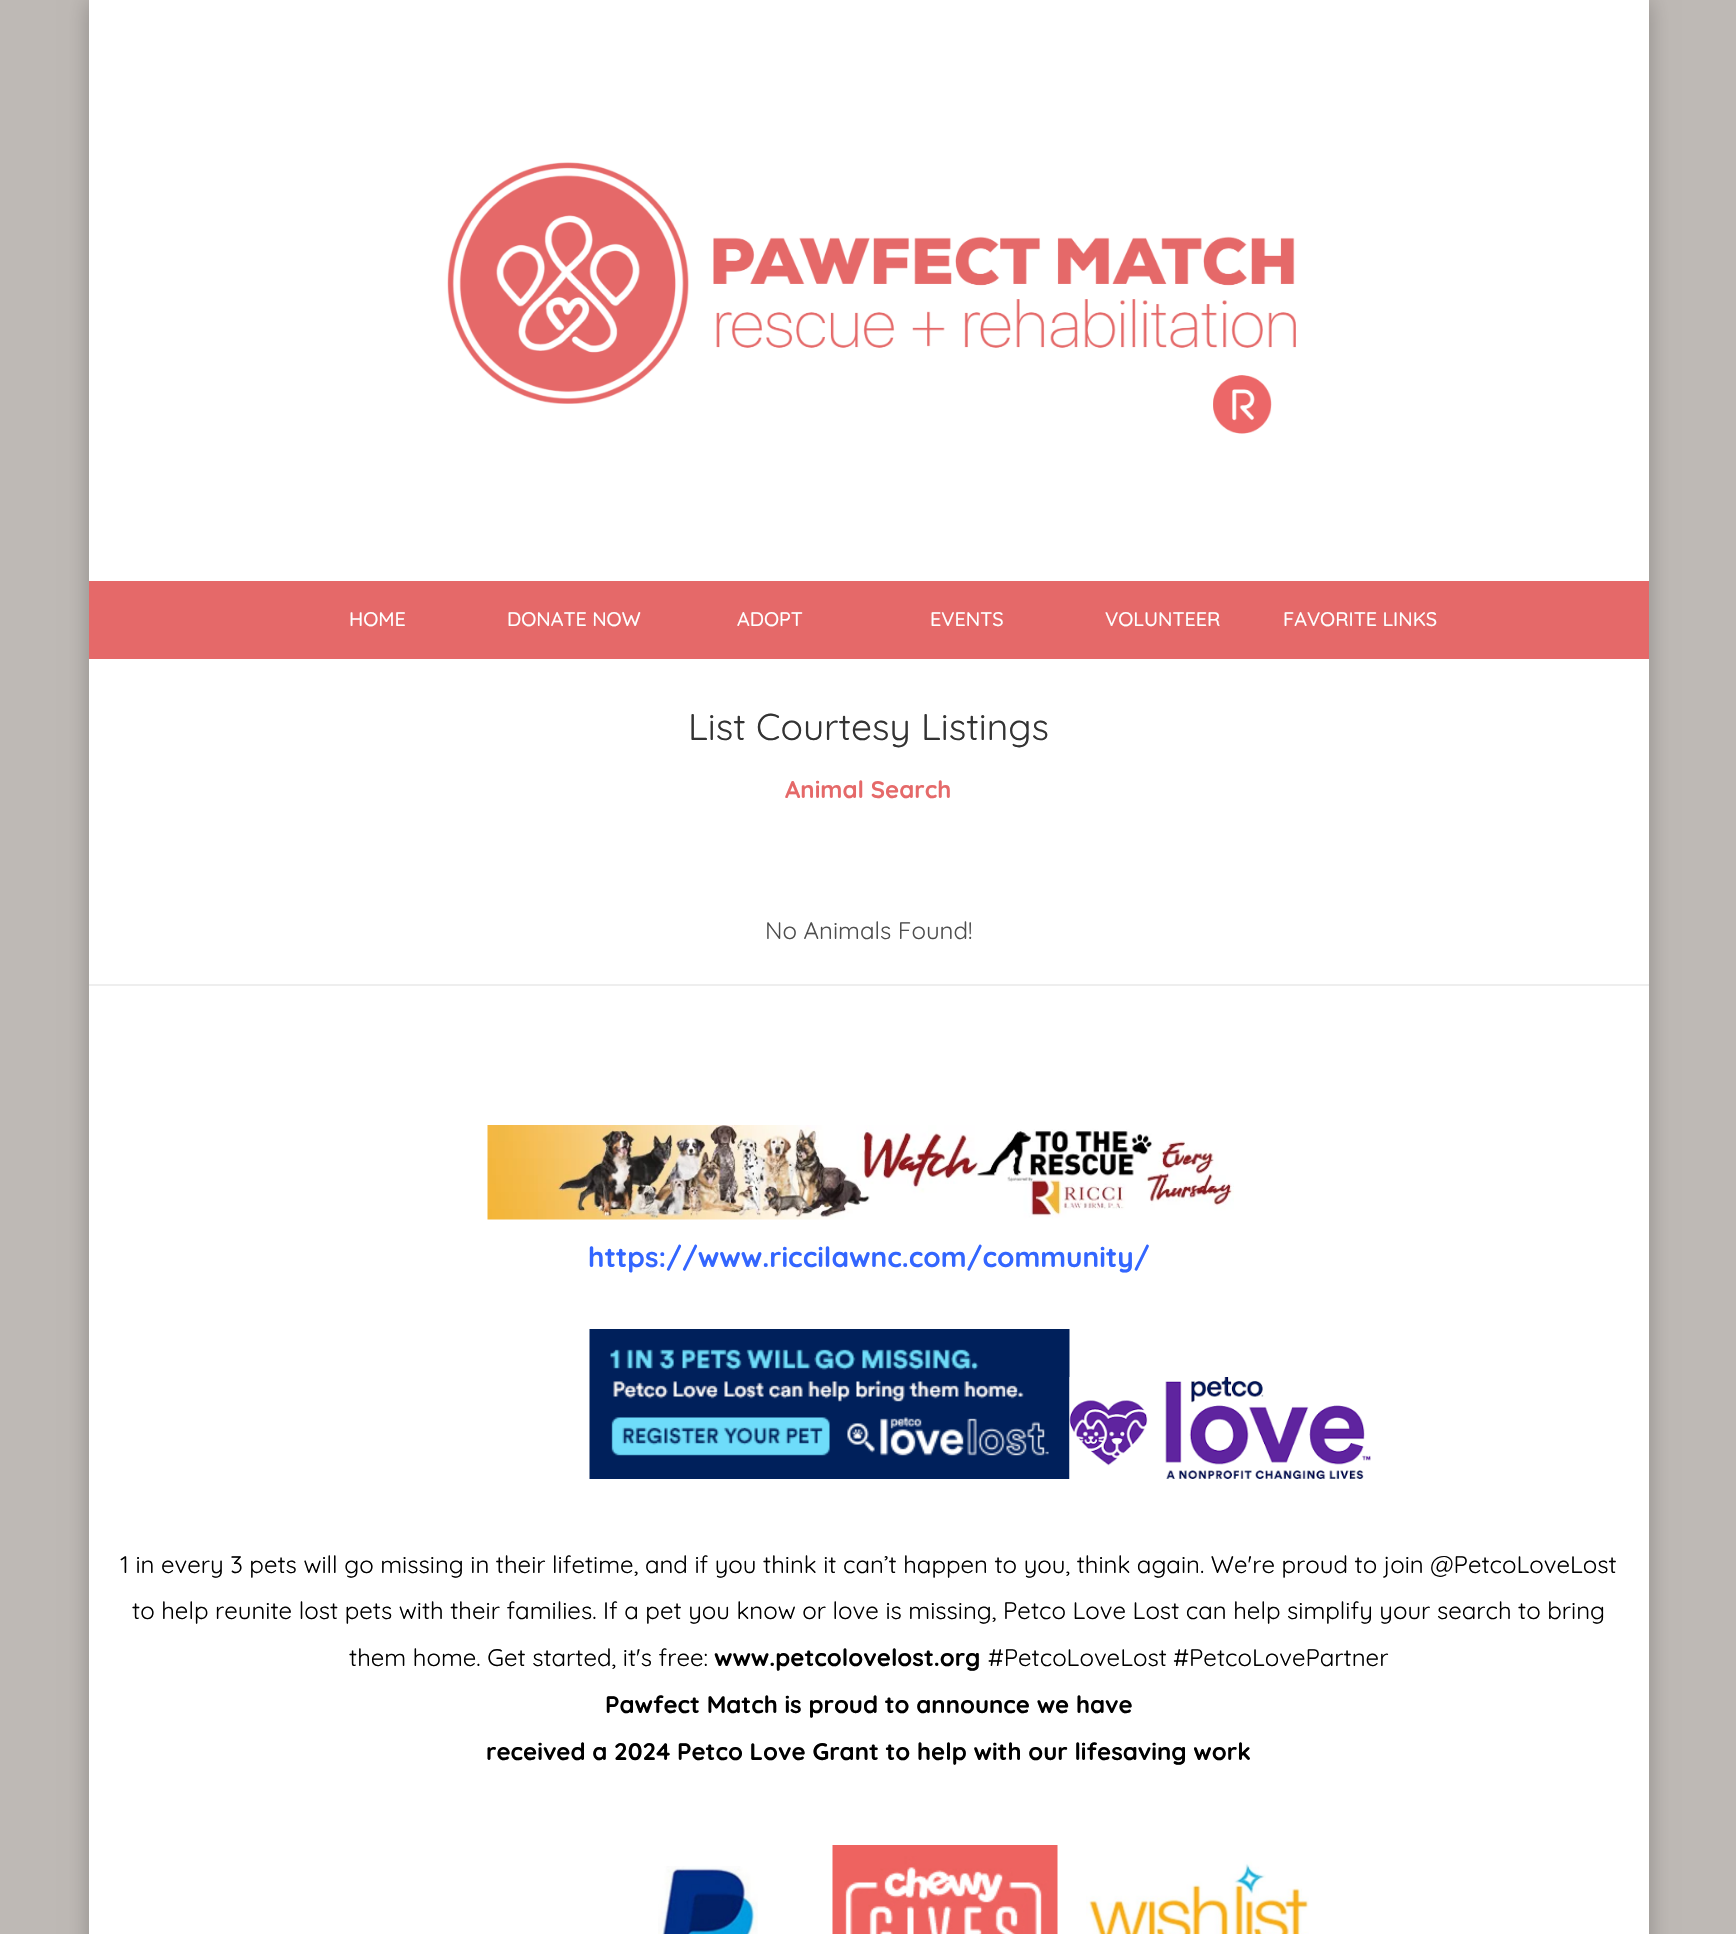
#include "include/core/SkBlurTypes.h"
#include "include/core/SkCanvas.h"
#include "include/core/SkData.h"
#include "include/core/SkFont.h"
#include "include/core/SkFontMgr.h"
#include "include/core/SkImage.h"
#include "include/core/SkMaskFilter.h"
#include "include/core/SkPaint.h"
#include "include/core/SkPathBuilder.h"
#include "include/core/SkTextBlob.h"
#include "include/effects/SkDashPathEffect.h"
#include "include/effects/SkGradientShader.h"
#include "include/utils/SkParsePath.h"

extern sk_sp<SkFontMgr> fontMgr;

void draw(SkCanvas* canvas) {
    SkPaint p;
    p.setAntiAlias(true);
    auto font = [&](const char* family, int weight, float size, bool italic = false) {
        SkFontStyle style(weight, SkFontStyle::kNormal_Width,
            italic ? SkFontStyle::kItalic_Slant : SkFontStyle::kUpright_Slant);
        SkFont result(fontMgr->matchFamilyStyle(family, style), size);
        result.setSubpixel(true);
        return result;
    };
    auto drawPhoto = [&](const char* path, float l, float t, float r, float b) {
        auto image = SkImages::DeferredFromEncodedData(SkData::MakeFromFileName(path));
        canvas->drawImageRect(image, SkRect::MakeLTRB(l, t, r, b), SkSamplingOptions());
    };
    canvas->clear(0xFFBEB9B5);
    p.setColor(0x40000000);
    p.setMaskFilter(SkMaskFilter::MakeBlur(kNormal_SkBlurStyle, 11));
    canvas->drawRect(SkRect::MakeLTRB(89, 0, 1649, 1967), p);
    p.setMaskFilter(nullptr);
    p.setColor(0xFFFFFFFF);
    canvas->drawRect(SkRect::MakeLTRB(89, 0, 1649, 1934), p);
    drawPhoto("media/1.png", 447, 162, 1296, 434);
    p.setColor(0xFFE56969);
    canvas->drawRect(SkRect::MakeLTRB(89, 581, 1649, 659), p);
    auto font1 = font("Quicksand", 500, 19.75f);
    p.setColor(0xFFFFFFFF);
    {
        const struct { const char* s; float x, y; } items[] = {
            {"HOME", 349, 626},
            {"DONATE NOW", 507, 626},
            {"ADOPT", 737, 626},
            {"EVENTS", 930, 626},
            {"VOLUNTEER", 1105, 626},
            {"FAVORITE LINKS", 1283, 626},
        };
        for (auto [s, x, y] : items) {
            canvas->drawString(s, x, y, font1, p);
        }
    }
    auto font2 = font("Quicksand", 400, 37.25f);
    p.setColor(0xFF333333);
    canvas->drawString("List Courtesy Listings", 688, 740, font2, p);
    auto font3 = font("Quicksand", 700, 24);
    p.setColor(0xFFE56969);
    canvas->drawString("Animal Search", 785, 798, font3, p);
    auto font4 = font("Quicksand", 400, 24);
    p.setColor(0xFF4E4E4E);
    canvas->drawString("No Animals Found!", 765, 939, font4, p);
    p.setColor(0xFFEEEEEE);
    canvas->drawRect(SkRect::MakeLTRB(89, 984, 1649, 986), p);
    drawPhoto("media/2.png", 487, 1125, 1234, 1220);
    auto font5 = font("Quicksand", 700, 28);
    p.setColor(0xFF3366FF);
    canvas->drawString("https://www.riccilawnc.com/community/", 588, 1267, font5, p);
    drawPhoto("media/3.png", 589, 1329, 1070, 1479);
    drawPhoto("media/4.png", 1069, 1377, 1371, 1479);
    p.setColor(0xFF000000);
    {
        const struct { const char* s; float x, y; } items[] = {
            {"1 in every 3 pets will go missing in their lifetime, and if you think it can’t happen to you, think again. We're proud to join @PetcoLoveLost", 120, 1573},
            {"to help reunite lost pets with their families. If a pet you know or love is missing, Petco Love Lost can help simplify your search to bring", 132, 1619},
            {"them home. Get started, it's free:", 349, 1666},
        };
        for (auto [s, x, y] : items) {
            canvas->drawString(s, x, y, font4, p);
        }
    }
    canvas->drawString("www.petcolovelost.org", 714, 1666, font3, p);
    canvas->drawString("#PetcoLoveLost #PetcoLovePartner", 988, 1666, font4, p);
    canvas->drawString("Pawfect Match is proud to announce we have", 605, 1713, font3, p);
    canvas->drawString("received a 2024 Petco Love Grant to help with our lifesaving work", 486, 1760, font3, p);
    drawPhoto("media/5.png", 658, 1866, 758, 1934);
    drawPhoto("media/6.png", 832, 1845, 1058, 1934);
    drawPhoto("media/7.png", 1086, 1860, 1309, 1934);
}
